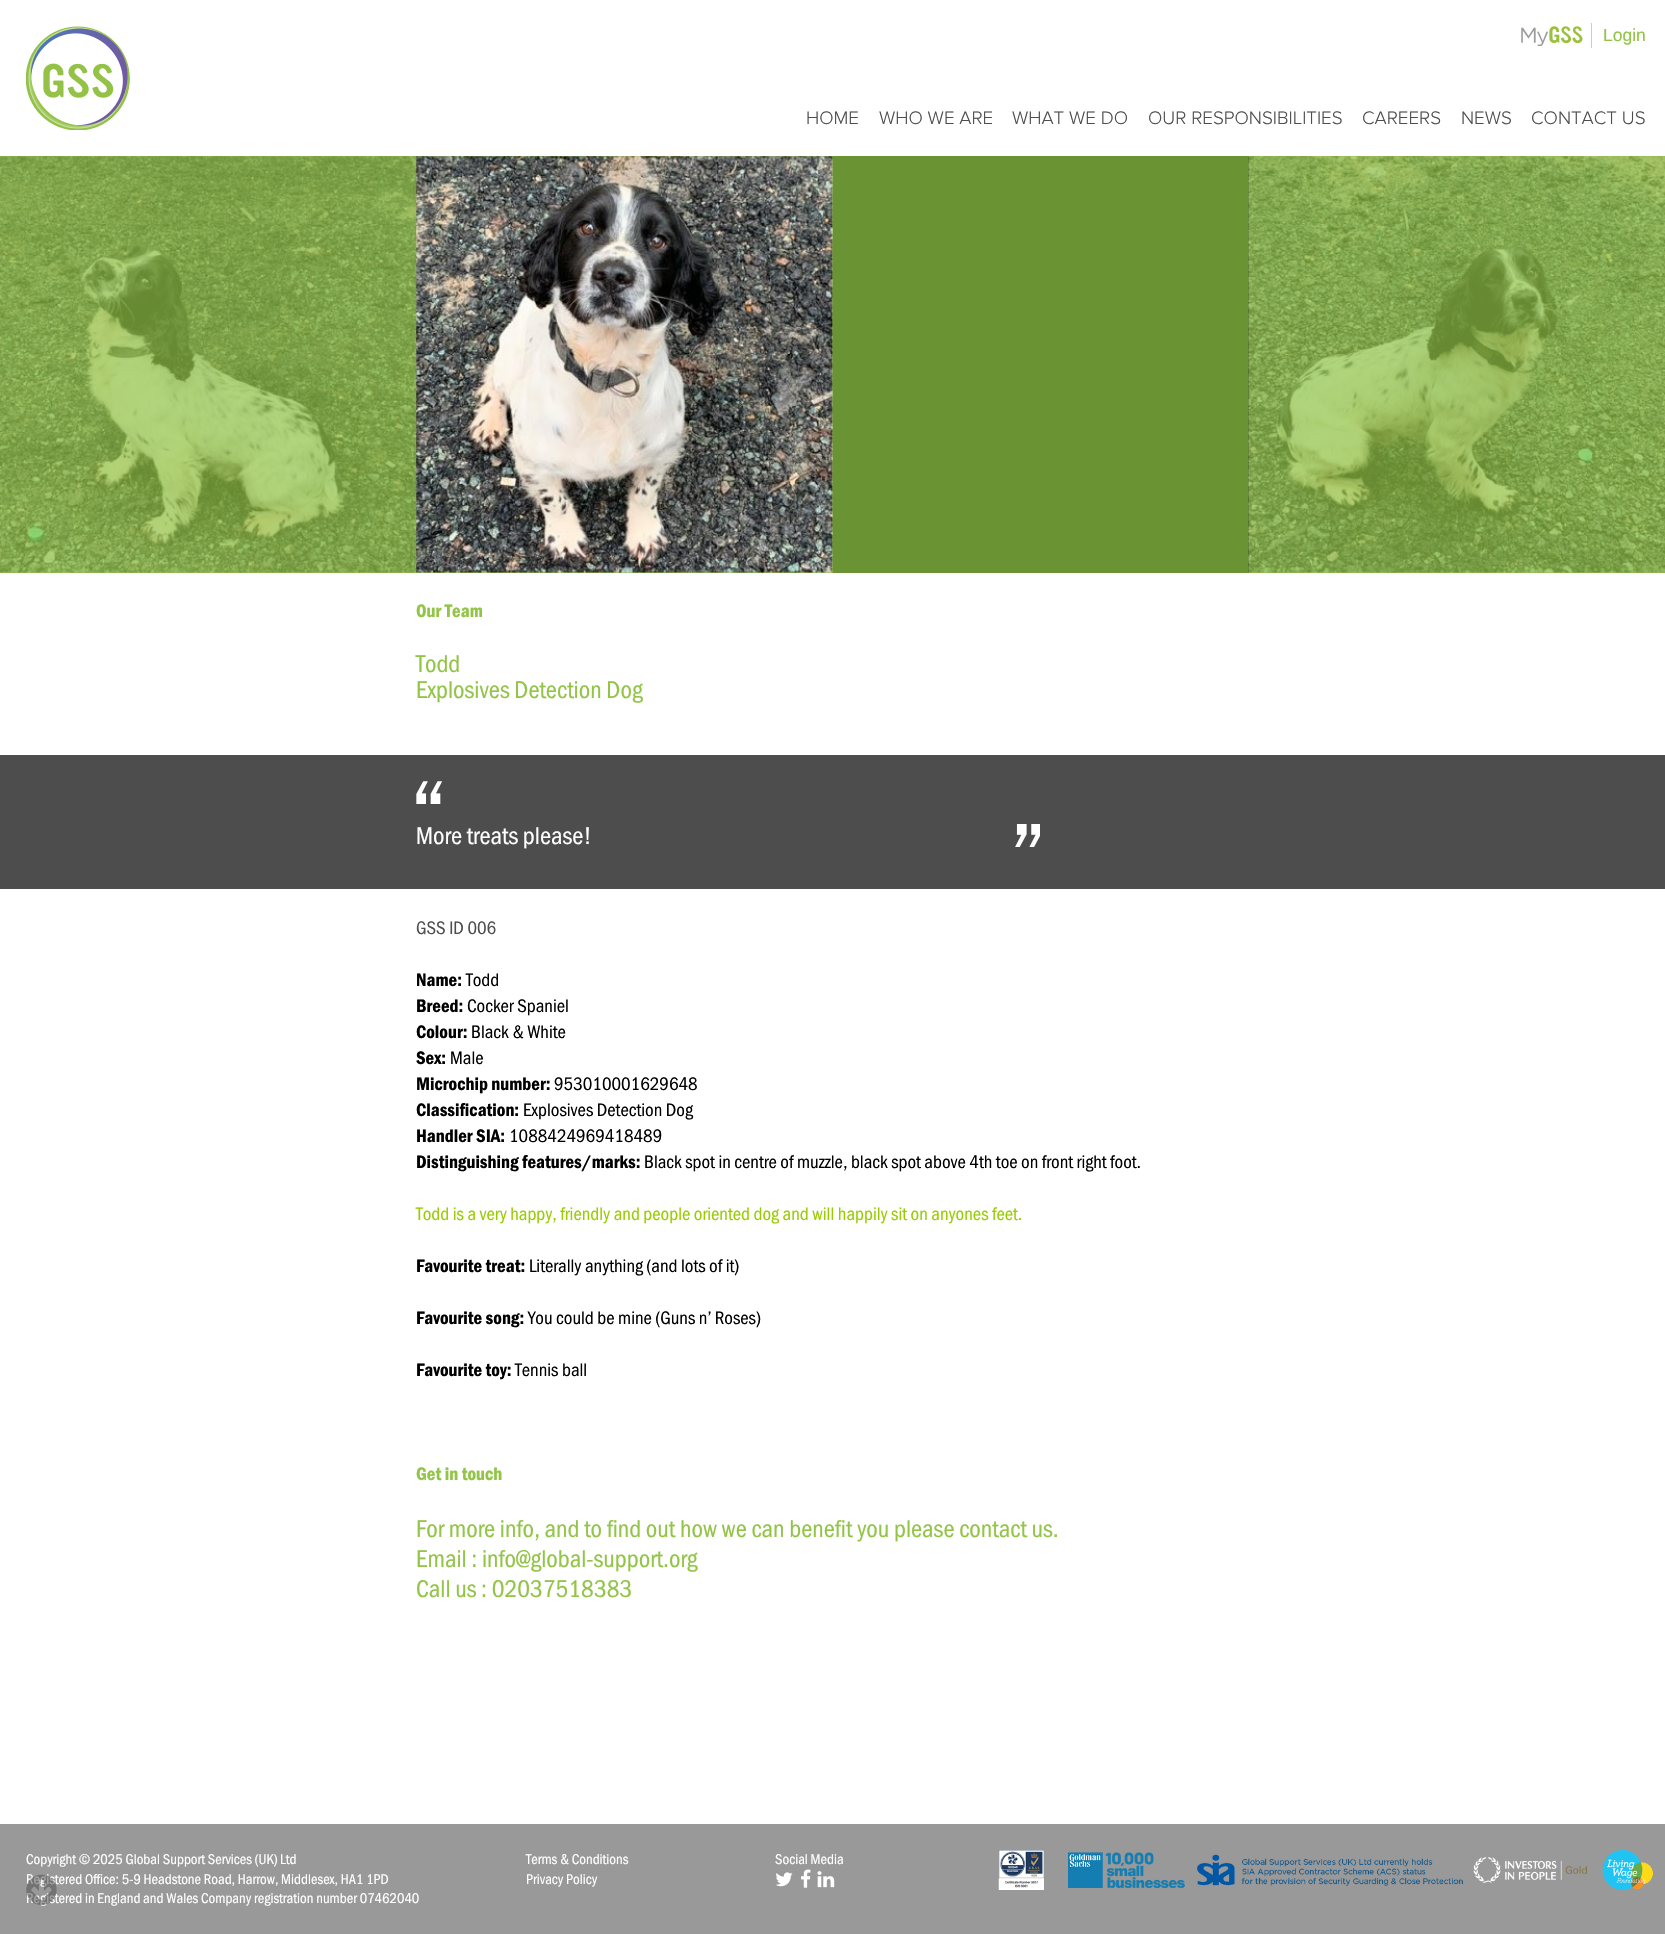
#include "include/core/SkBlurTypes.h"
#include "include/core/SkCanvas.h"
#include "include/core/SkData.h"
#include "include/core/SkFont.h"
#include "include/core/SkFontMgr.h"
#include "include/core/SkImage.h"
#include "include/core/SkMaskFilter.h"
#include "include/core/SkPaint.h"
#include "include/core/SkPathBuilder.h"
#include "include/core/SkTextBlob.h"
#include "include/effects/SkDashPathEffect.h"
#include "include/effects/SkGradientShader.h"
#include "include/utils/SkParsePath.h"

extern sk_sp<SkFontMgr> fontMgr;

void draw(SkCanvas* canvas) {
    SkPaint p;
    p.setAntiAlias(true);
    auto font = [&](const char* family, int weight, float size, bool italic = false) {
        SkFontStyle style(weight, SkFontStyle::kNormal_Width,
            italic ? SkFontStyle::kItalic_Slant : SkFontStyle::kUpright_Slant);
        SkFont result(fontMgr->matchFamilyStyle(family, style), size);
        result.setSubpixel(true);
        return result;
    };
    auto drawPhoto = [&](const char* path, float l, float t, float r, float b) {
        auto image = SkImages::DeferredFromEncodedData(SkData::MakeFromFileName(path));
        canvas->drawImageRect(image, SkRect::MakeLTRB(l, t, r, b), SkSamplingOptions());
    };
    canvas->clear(0xFFFFFFFF);
    drawPhoto("media/1.png", 26, 26, 130, 130);
    drawPhoto("media/2.png", 1521, 26, 1583, 46);
    p.setColor(0xFFCCCCCC);
    canvas->drawRect(SkRect::MakeLTRB(1591, 23, 1592, 48), p);
    auto font1 = font("Liberation Sans", 400, 17.5f);
    p.setColor(0xFF92C446);
    canvas->drawString("Login", 1603, 41, font1, p);
    auto font2 = font("Proxima Nova", 300, 18.75f);
    p.setColor(0xFF4D4D4D);
    {
        const struct { const char* s; float x, y; } items[] = {
            {"HOME", 806, 124},
            {"WHO WE ARE", 879, 124},
            {"WHAT WE DO", 1012, 124},
            {"OUR RESPONSIBILITIES", 1148, 124},
            {"CAREERS", 1362, 124},
            {"NEWS", 1461, 124},
            {"CONTACT US", 1531, 124},
        };
        for (auto [s, x, y] : items) {
            canvas->drawString(s, x, y, font2, p);
        }
    }
    p.setColor(0xFF92C446);
    canvas->drawRect(SkRect::MakeLTRB(0, 156, 833, 573), p);
    canvas->drawRect(SkRect::MakeLTRB(1249, 156, 1665, 573), p);
    drawPhoto("media/3.png", 0, 156, 417, 573);
    drawPhoto("media/4.png", 416, 156, 833, 573);
    p.setColor(0xFF6A9333);
    canvas->drawRect(SkRect::MakeLTRB(833, 156, 1249, 573), p);
    drawPhoto("media/5.png", 1248, 156, 1665, 573);
    auto font3 = font("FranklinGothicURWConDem", 400, 18.75f);
    p.setColor(0xFF92C446);
    canvas->drawString("Our Team", 416, 617, font3, p);
    auto font4 = font("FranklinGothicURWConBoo", 400, 25);
    canvas->drawString("Todd", 416, 672, font4, p);
    canvas->drawString("Explosives Detection Dog", 416, 698, font4, p);
    p.setColor(0xFF4D4D4D);
    canvas->drawRect(SkRect::MakeLTRB(0, 755, 1665, 889), p);
    drawPhoto("media/6.png", 416, 781, 443, 804);
    p.setColor(0xFFFFFFFF);
    canvas->drawString("More treats please!", 416, 844, font4, p);
    drawPhoto("media/7.png", 1015, 824, 1040, 847);
    auto font5 = font("FranklinGothicURWConBoo", 400, 18.75f);
    p.setColor(0xFF4D4D4D);
    canvas->drawString("GSS ID 006", 416, 934, font5, p);
    p.setColor(0xFF000000);
    canvas->drawString("Name:", 416, 986, font3, p);
    canvas->drawString("Todd", 466, 986, font5, p);
    canvas->drawString("Breed:", 416, 1012, font3, p);
    canvas->drawString("Cocker Spaniel", 467, 1012, font5, p);
    canvas->drawString("Colour:", 416, 1038, font3, p);
    canvas->drawString("Black & White", 471, 1038, font5, p);
    canvas->drawString("Sex:", 416, 1064, font3, p);
    canvas->drawString("Male", 450, 1064, font5, p);
    canvas->drawString("Microchip number:", 416, 1090, font3, p);
    canvas->drawString("953010001629648", 554, 1090, font5, p);
    canvas->drawString("Classification:", 416, 1116, font3, p);
    canvas->drawString("Explosives Detection Dog", 523, 1116, font5, p);
    canvas->drawString("Handler SIA:", 416, 1142, font3, p);
    canvas->drawString("1088424969418489", 509, 1142, font5, p);
    canvas->drawString("Distinguishing features/marks:", 416, 1168, font3, p);
    canvas->drawString("Black spot in centre of muzzle, black spot above 4th toe on front right foot.", 644, 1168, font5, p);
    p.setColor(0xFF99CC00);
    canvas->drawString("Todd is a very happy, friendly and people oriented dog and will happily sit on anyones feet.", 416, 1220, font5, p);
    p.setColor(0xFF000000);
    canvas->drawString("Favourite treat:", 416, 1272, font3, p);
    canvas->drawString("Literally anything (and lots of it)", 529, 1272, font5, p);
    canvas->drawString("Favourite song:", 416, 1324, font3, p);
    canvas->drawString("You could be mine (Guns n’ Roses)", 528, 1324, font5, p);
    canvas->drawString("Favourite toy:", 416, 1376, font3, p);
    canvas->drawString("Tennis ball", 515, 1376, font5, p);
    p.setColor(0xFF92C446);
    canvas->drawString("Get in touch", 416, 1480, font3, p);
    {
        const struct { const char* s; float x, y; } items[] = {
            {"For more info, and to find out how we can benefit you please contact us.", 416, 1537},
            {"Email : info@global-support.org", 416, 1567},
            {"Call us : 02037518383", 416, 1597},
        };
        for (auto [s, x, y] : items) {
            canvas->drawString(s, x, y, font4, p);
        }
    }
    p.setColor(0xFF999999);
    canvas->drawRect(SkRect::MakeLTRB(0, 1824, 1665, 1934), p);
    auto font6 = font("FranklinGothicURWConBoo", 400, 14.6f);
    p.setColor(0xFFFFFFFF);
    canvas->drawString("Registered Office: 5-9 Headstone Road, Harrow, Middlesex, HA1 1PD", 26, 1884, font6, p);
    canvas->drawString("Registered in England and Wales Company registration number 07462040", 26, 1903, font6, p);
    drawPhoto("media/8.png", 26, 1874, 57, 1905);
    {
        const struct { const char* s; float x, y; } items[] = {
            {"Copyright © 2025 Global Support Services (UK) Ltd", 26, 1864},
            {"Terms & Conditions", 526, 1864},
            {"Privacy Policy", 526, 1884},
            {"Social Media", 775, 1864},
        };
        for (auto [s, x, y] : items) {
            canvas->drawString(s, x, y, font6, p);
        }
    }
    drawPhoto("media/9.png", 775, 1872, 793, 1887);
    drawPhoto("media/10.png", 801, 1869, 811, 1888);
    drawPhoto("media/11.png", 817, 1871, 835, 1888);
    drawPhoto("media/12.png", 998, 1850, 1653, 1890);
}
